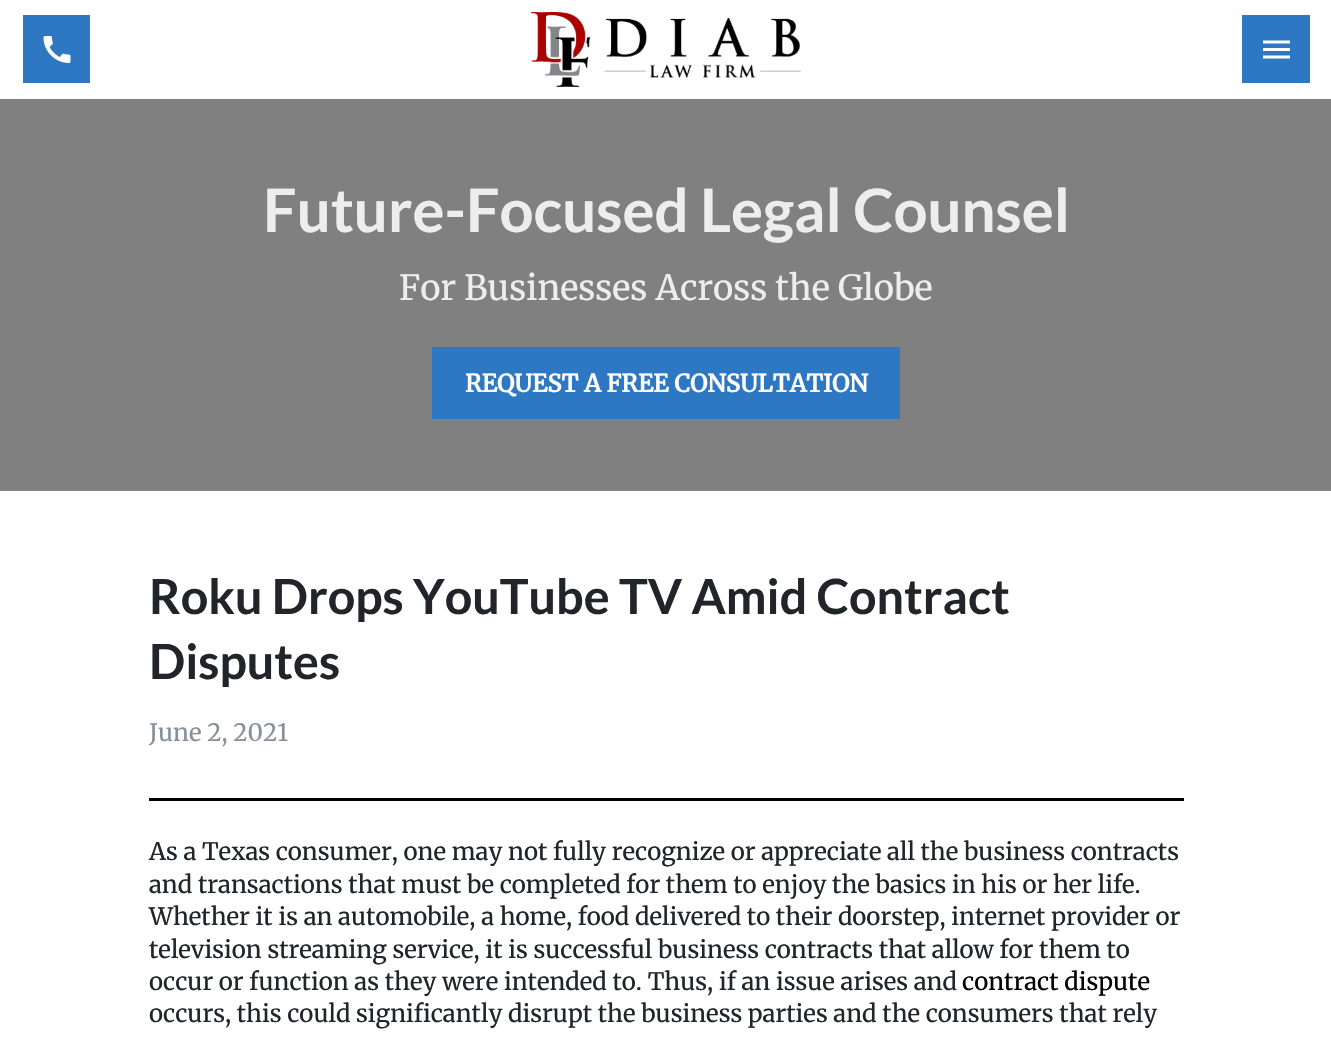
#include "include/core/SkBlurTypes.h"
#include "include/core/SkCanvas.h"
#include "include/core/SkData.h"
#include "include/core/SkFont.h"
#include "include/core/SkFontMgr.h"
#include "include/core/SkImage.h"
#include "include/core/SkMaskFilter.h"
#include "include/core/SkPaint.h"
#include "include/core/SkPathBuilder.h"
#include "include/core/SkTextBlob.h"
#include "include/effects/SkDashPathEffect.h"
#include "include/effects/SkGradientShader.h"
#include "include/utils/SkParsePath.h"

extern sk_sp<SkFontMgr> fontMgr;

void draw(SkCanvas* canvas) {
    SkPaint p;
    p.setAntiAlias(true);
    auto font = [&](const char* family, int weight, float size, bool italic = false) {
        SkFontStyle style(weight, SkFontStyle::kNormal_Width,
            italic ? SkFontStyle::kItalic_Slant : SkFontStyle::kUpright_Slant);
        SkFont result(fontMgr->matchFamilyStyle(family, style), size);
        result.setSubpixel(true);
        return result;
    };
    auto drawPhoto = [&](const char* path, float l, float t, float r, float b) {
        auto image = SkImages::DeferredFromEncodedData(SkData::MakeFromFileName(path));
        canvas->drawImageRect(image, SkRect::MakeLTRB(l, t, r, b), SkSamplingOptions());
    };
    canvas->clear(0xFFFFFFFF);
    p.setColor(0xFF2E77C2);
    canvas->drawRect(SkRect::MakeLTRB(23, 15, 90, 83), p);
    drawPhoto("media/1.png", 43, 36, 71, 63);
    drawPhoto("media/2.png", 531, 12, 801, 87);
    canvas->drawRect(SkRect::MakeLTRB(1242, 15, 1310, 83), p);
    drawPhoto("media/3.png", 1263, 40, 1290, 59);
    p.setColor(0xFF808080);
    canvas->drawRect(SkRect::MakeLTRB(0, 99, 1331, 491), p);
    auto font1 = font("Lato", 700, 59.9f);
    p.setColor(0xFFEEEDED);
    canvas->drawString("Future-Focused Legal Counsel", 263, 232, font1, p);
    auto font2 = font("Merriweather", 300, 34.6f);
    canvas->drawString("For Businesses Across the Globe", 399, 300, font2, p);
    p.setColor(0xFF2E77C2);
    canvas->drawRect(SkRect::MakeLTRB(432, 347, 900, 419), p);
    auto font3 = font("Merriweather", 700, 24);
    p.setColor(0xFFFFFFFF);
    canvas->drawString("REQUEST A FREE CONSULTATION", 465, 392, font3, p);
    auto font4 = font("Lato", 700, 48.4f);
    p.setColor(0xFF212529);
    canvas->drawString("Roku Drops YouTube TV Amid Contract", 149, 614, font4, p);
    canvas->drawString("Disputes", 149, 679, font4, p);
    p.setColor(0xFF000000);
    canvas->drawRect(SkRect::MakeLTRB(149, 798, 1184, 801), p);
    auto font5 = font("Merriweather", 300, 24);
    p.setColor(0xFF87919B);
    canvas->drawString("June 2, 2021", 149, 741, font5, p);
    p.setColor(0xFF212529);
    {
        const struct { const char* s; float x, y; } items[] = {
            {"As a Texas consumer, one may not fully recognize or appreciate all the business contracts", 149, 860},
            {"and transactions that must be completed for them to enjoy the basics in his or her life.", 149, 893},
            {"Whether it is an automobile, a home, food delivered to their doorstep, internet provider or", 149, 925},
            {"television streaming service, it is successful business contracts that allow for them to", 149, 958},
            {"occur or function as they were intended to. Thus, if an issue arises and", 149, 990},
        };
        for (auto [s, x, y] : items) {
            canvas->drawString(s, x, y, font5, p);
        }
    }
    p.setColor(0xFF000000);
    canvas->drawString("contract dispute", 962, 990, font5, p);
    p.setColor(0xFF212529);
    canvas->drawString("occurs, this could significantly disrupt the business parties and the consumers that rely", 149, 1022, font5, p);
}
